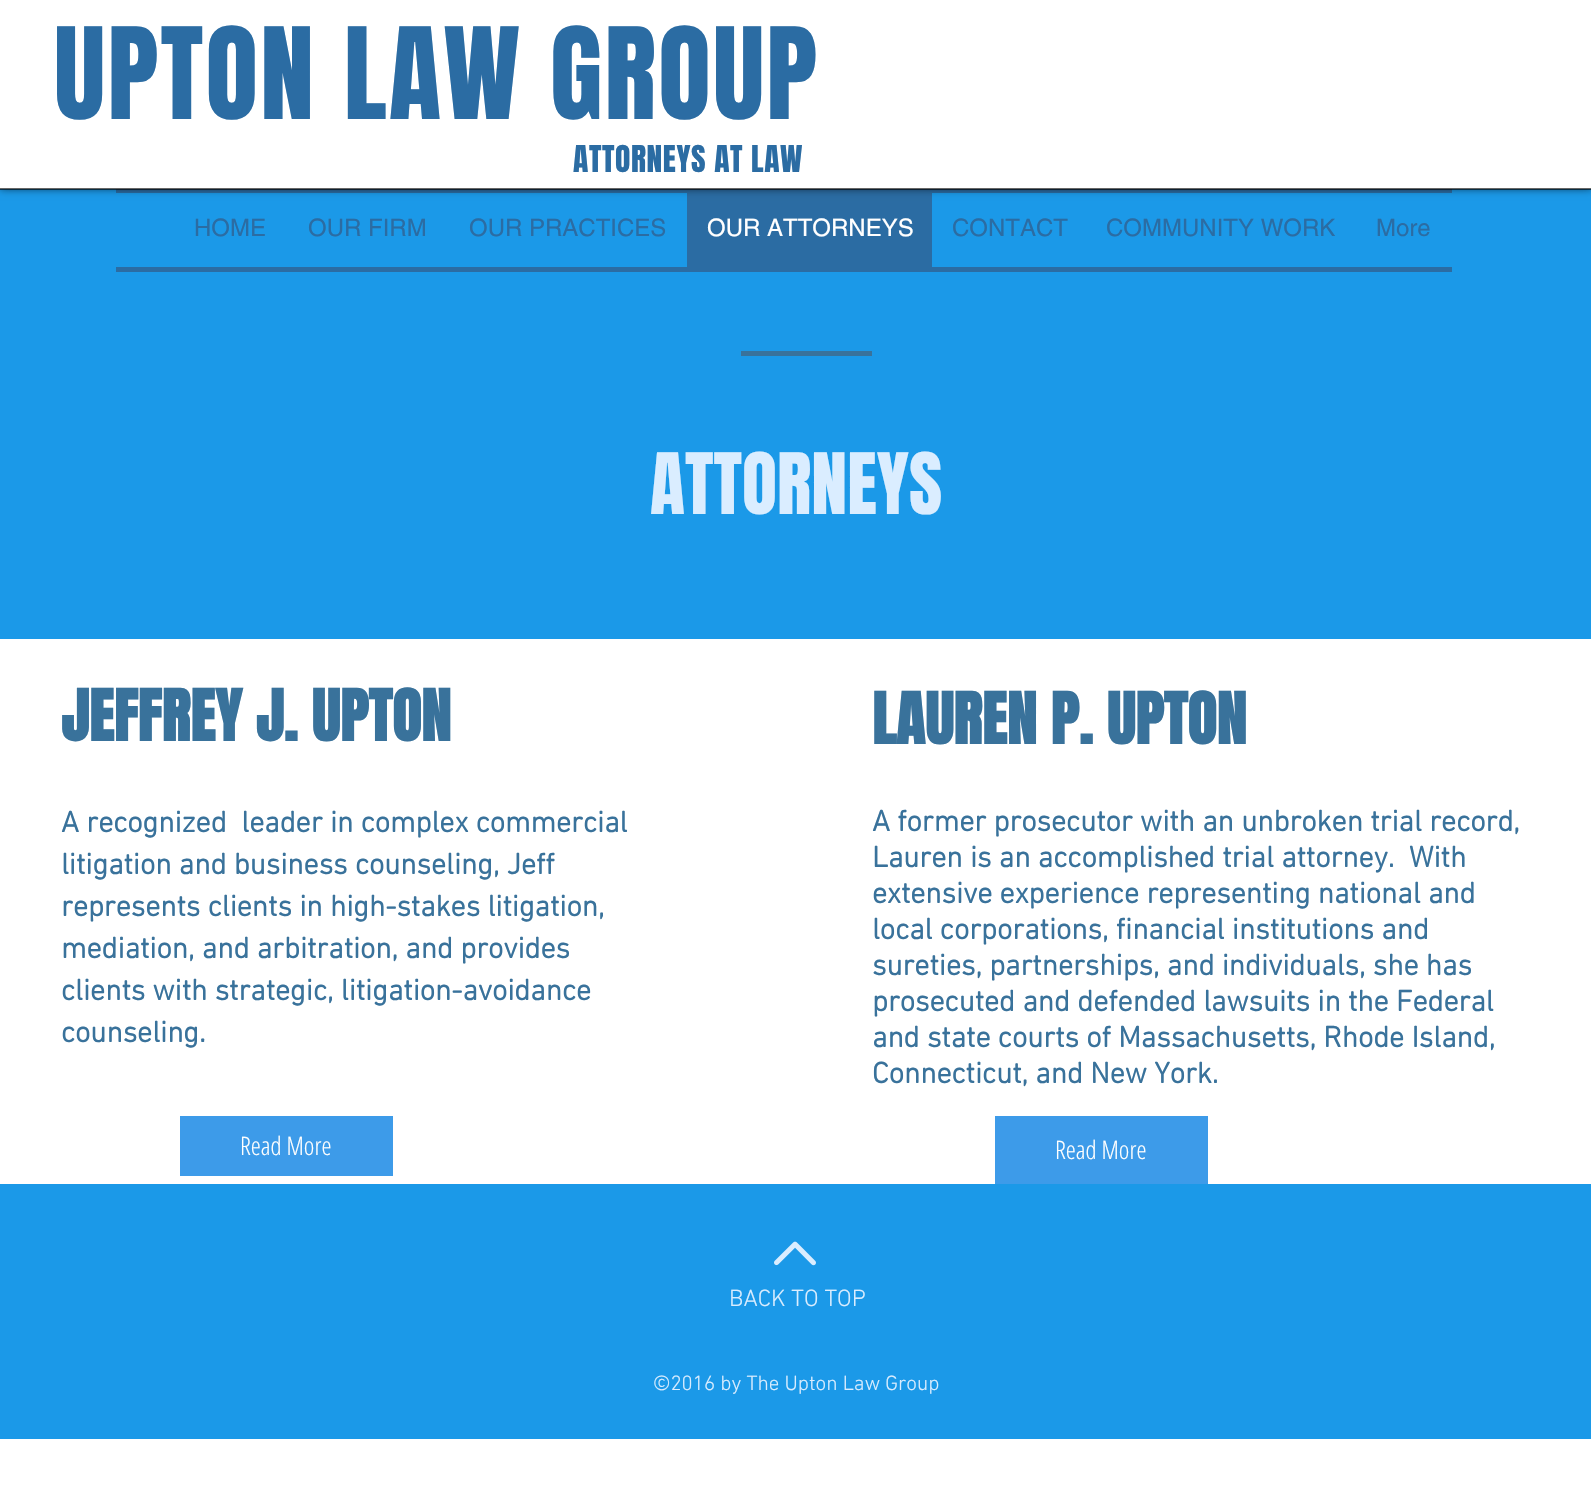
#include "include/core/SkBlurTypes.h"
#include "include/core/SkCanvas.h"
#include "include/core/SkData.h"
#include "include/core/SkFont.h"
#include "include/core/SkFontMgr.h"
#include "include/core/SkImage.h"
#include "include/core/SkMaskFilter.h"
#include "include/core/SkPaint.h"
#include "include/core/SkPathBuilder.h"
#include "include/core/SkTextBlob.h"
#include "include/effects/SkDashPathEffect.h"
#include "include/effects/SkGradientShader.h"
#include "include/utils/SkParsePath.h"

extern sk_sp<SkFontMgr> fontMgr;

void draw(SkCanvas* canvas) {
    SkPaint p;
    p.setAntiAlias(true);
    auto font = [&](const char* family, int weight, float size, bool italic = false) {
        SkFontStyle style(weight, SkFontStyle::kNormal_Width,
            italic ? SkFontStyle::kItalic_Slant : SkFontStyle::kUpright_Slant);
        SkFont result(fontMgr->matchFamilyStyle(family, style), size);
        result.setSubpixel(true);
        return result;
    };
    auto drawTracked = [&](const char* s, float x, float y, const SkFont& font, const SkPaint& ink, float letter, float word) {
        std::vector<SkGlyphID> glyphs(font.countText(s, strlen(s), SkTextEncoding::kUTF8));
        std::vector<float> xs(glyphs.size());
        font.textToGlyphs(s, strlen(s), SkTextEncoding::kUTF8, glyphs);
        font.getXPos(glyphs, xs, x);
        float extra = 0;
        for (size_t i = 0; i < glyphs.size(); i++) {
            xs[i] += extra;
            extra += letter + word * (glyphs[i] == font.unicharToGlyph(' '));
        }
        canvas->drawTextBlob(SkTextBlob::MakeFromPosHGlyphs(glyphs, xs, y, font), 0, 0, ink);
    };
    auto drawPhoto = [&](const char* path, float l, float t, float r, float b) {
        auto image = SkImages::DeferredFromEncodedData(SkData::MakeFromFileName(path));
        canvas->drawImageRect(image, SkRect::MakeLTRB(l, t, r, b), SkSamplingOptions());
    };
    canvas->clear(0xFFFFFFFF);
    {
        const struct { float l, t, r, b; SkColor color; } items[] = {
            {0, 189, 1591, 639, 0xFF1B99E8},
            {116, 189, 1452, 193, 0xFF2B6CA3},
            {687, 193, 932, 267, 0xFF2B6CA3},
        };
        for (auto [l, t, r, b, color] : items) {
            p.setColor(color);
            canvas->drawRect(SkRect::MakeLTRB(l, t, r, b), p);
        }
    }
    p.setColor(0x99000000);
    p.setMaskFilter(SkMaskFilter::MakeBlur(kNormal_SkBlurStyle, 4));
    canvas->drawRect(SkRect::MakeLTRB(0, 0, 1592, 189), p);
    p.setMaskFilter(nullptr);
    p.setColor(0xFFFFFFFF);
    canvas->drawRect(SkRect::MakeLTRB(0, 0, 1591, 189), p);
    p.setColor(0x99000000);
    canvas->drawRect(SkRect::MakeLTRB(0, 188, 1591, 190), p);
    auto font1 = font("Anton", 400, 108);
    p.setColor(0xFF2B6CA3);
    drawTracked("UPTON LAW GROUP", 54, 119, font1, p, 2.2f, 0);
    auto font2 = font("Anton", 400, 31.5f);
    drawTracked("ATTORNEYS AT LAW", 573, 172, font2, p, 0.6f, 0);
    canvas->drawRect(SkRect::MakeLTRB(116, 267, 1452, 272), p);
    auto font3 = font("helvetica", 400, 24);
    {
        const struct { const char* s; float x, y; } items[] = {
            {"HOME", 194, 236},
            {"OUR FIRM", 308, 236},
            {"OUR PRACTICES", 469, 236},
        };
        for (auto [s, x, y] : items) {
            canvas->drawString(s, x, y, font3, p);
        }
    }
    p.setColor(0xFFFFFFFF);
    canvas->drawString("OUR ATTORNEYS", 707, 236, font3, p);
    p.setColor(0xFF2B6CA3);
    {
        const struct { const char* s; float x, y; } items[] = {
            {"CONTACT", 952, 236},
            {"COMMUNITY WORK", 1106, 236},
            {"More", 1376, 236},
        };
        for (auto [s, x, y] : items) {
            canvas->drawString(s, x, y, font3, p);
        }
    }
    p.setColor(0xFF39729B);
    canvas->drawRect(SkRect::MakeLTRB(741, 351, 872, 356), p);
    auto font4 = font("Anton", 400, 72);
    p.setColor(0xFFDAEDFF);
    canvas->drawString("ATTORNEYS", 650, 514, font4, p);
    auto font5 = font("Anton", 700, 60);
    p.setColor(0xFF39729B);
    canvas->drawString("JEFFREY J. UPTON", 61, 741, font5, p);
    canvas->drawString("LAUREN P. UPTON", 872, 744, font5, p);
    auto font6 = font("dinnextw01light", 700, 30);
    {
        const struct { const char* s; float x, y; } items[] = {
            {"A recognized  leader in complex commercial", 61, 832},
            {"litigation and business counseling, Jeff", 61, 874},
            {"represents clients in high-stakes litigation,", 61, 916},
            {"mediation, and arbitration, and provides", 61, 958},
            {"clients with strategic, litigation-avoidance", 61, 1000},
            {"counseling.", 61, 1042},
            {"A former prosecutor with an unbroken trial record,", 872, 831},
            {"Lauren is an accomplished trial attorney.  With", 872, 867},
            {"extensive experience representing national and", 872, 903},
            {"local corporations, financial institutions and", 872, 939},
            {"sureties, partnerships, and individuals, she has", 872, 975},
            {"prosecuted and defended lawsuits in the Federal", 872, 1011},
            {"and state courts of Massachusetts, Rhode Island,", 872, 1047},
            {"Connecticut, and New York.", 872, 1083},
        };
        for (auto [s, x, y] : items) {
            canvas->drawString(s, x, y, font6, p);
        }
    }
    p.setColor(0xFF3D9BE9);
    canvas->drawRect(SkRect::MakeLTRB(180, 1116, 393, 1176), p);
    auto font7 = font("Open Sans Condensed", 300, 25.5f);
    p.setColor(0xFFFFFFFF);
    canvas->drawString("Read More", 240, 1155, font7, p);
    p.setColor(0xFF3D9BE9);
    canvas->drawRect(SkRect::MakeLTRB(995, 1116, 1208, 1184), p);
    p.setColor(0xFFFFFFFF);
    canvas->drawString("Read More", 1055, 1159, font7, p);
    p.setColor(0xFF1B99E8);
    canvas->drawRect(SkRect::MakeLTRB(0, 1184, 1591, 1439), p);
    drawPhoto("media/1.png", 774, 1241, 816, 1266);
    auto font8 = font("dinnextw01light", 300, 24);
    p.setColor(0xFFDAEDFF);
    canvas->drawString("BACK TO TOP", 729, 1306, font8, p);
    auto font9 = font("dinnextw01light", 300, 21);
    canvas->drawString("©2016 by The Upton Law Group", 653, 1390, font9, p);
}
